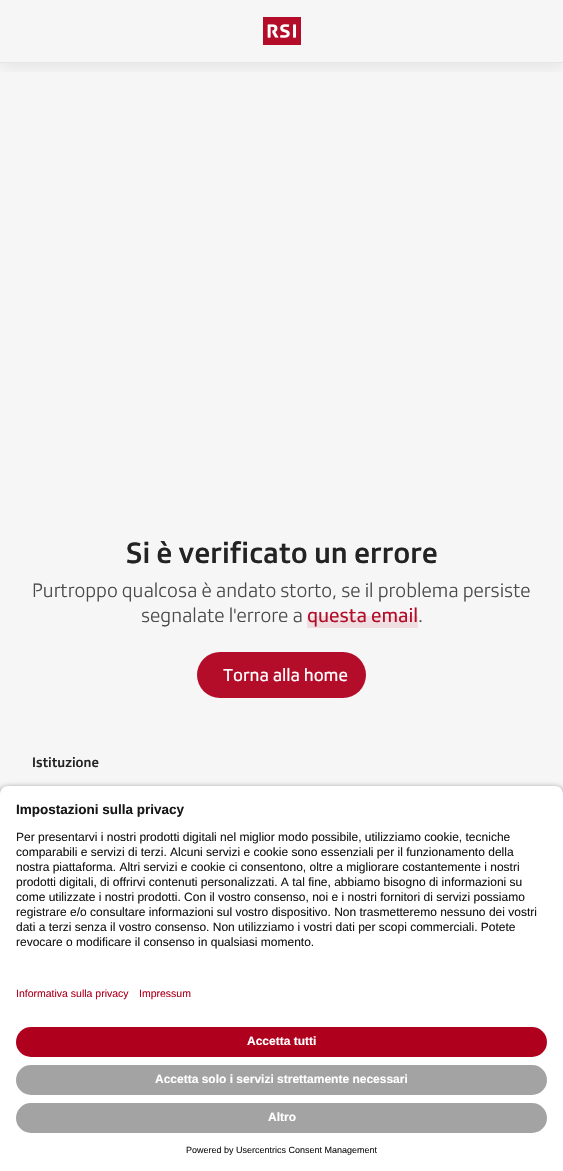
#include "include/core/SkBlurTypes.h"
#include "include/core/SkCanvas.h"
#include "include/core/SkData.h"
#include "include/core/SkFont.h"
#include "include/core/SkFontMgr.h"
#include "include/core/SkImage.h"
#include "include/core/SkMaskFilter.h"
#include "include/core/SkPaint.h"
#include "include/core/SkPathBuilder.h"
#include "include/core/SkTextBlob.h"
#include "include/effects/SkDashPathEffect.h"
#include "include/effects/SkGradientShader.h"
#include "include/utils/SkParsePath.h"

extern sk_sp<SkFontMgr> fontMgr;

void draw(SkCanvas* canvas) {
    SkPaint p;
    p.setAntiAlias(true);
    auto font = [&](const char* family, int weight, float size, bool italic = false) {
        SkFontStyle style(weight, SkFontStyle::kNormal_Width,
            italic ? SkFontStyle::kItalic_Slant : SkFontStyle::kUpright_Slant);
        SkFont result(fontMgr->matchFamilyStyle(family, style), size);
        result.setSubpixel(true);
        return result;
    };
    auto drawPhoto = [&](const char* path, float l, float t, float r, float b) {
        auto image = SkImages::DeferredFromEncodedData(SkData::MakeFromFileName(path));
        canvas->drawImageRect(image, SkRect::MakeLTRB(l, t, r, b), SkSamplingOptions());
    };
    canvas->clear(0xFFF6F6F6);
    canvas->save();
    canvas->clipRect(SkRect::MakeLTRB(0, 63, 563, 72));
    p.setColor(0x140D0D0D);
    p.setMaskFilter(SkMaskFilter::MakeBlur(kNormal_SkBlurStyle, 7.5f));
    canvas->drawRect(SkRect::MakeLTRB(0, 4, 563, 67), p);
    p.setMaskFilter(nullptr);
    canvas->restore();
    p.setColor(0xFFE6E6E6);
    canvas->drawRect(SkRect::MakeLTRB(0, 62, 563, 63), p);
    drawPhoto("media/1.png", 263, 17, 301, 45);
    auto font1 = font("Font", 500, 30);
    p.setColor(0xFF232323);
    canvas->drawString("Si è verificato un errore", 126, 563, font1, p);
    auto font2 = font("Font", 300, 20);
    p.setColor(0xFF4A4A4A);
    canvas->drawString("Purtroppo qualcosa è andato storto, se il problema persiste", 32, 597, font2, p);
    canvas->drawString("segnalate l'errore a", 141, 622, font2, p);
    p.setColor(0xFFEFDFE2);
    canvas->drawRect(SkRect::MakeLTRB(307, 616, 418, 628), p);
    auto font3 = font("Font", 400, 20);
    p.setColor(0xFFB30D29);
    canvas->drawString("questa email", 307, 622, font3, p);
    p.setColor(0xFF4A4A4A);
    canvas->drawString(".", 418, 622, font2, p);
    p.setColor(0xFFB30D29);
    canvas->drawRoundRect(SkRect::MakeLTRB(197, 652, 366, 698), 23, 23, p);
    auto font4 = font("Font", 400, 18);
    p.setColor(0xFFFFFFFF);
    canvas->drawString("Torna alla home", 223, 681, font4, p);
    auto font5 = font("Font", 500, 14);
    p.setColor(0xFF232323);
    canvas->drawString("Istituzione", 32, 767, font5, p);
    p.setColor(0xCC000000);
    p.setMaskFilter(SkMaskFilter::MakeBlur(kNormal_SkBlurStyle, 3.5f));
    canvas->drawRoundRect(SkRect::MakeLTRB(0, 789, 563, 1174), 8, 8, p);
    p.setMaskFilter(nullptr);
    p.setColor(0xFFFFFFFF);
    canvas->drawPath(SkPathBuilder().moveTo(8, 786).lineTo(555, 786).cubicTo(559.5f, 786, 563, 789.5f, 563, 794).lineTo(563, 970).lineTo(0, 970).lineTo(0, 794).cubicTo(0, 789.5f, 3.5f, 786, 8, 786).close().detach(), p);
    auto font6 = font("Liberation Sans", 700, 13.5f);
    p.setColor(0xFF171717);
    canvas->drawString("Impostazioni sulla privacy", 16, 814, font6, p);
    auto font7 = font("Liberation Sans", 400, 12);
    {
        const struct { const char* s; float x, y; } items[] = {
            {"Per presentarvi i nostri prodotti digitali nel miglior modo possibile, utilizziamo cookie, tecniche", 16, 841},
            {"comparabili e servizi di terzi. Alcuni servizi e cookie sono essenziali per il funzionamento della", 16, 856},
            {"nostra piattaforma. Altri servizi e cookie ci consentono, oltre a migliorare costantemente i nostri", 16, 871},
            {"prodotti digitali, di offrirvi contenuti personalizzati. A tal fine, abbiamo bisogno di informazioni su", 16, 886},
            {"come utilizzate i nostri prodotti. Con il vostro consenso, noi e i nostri fornitori di servizi possiamo", 16, 901},
            {"registrare e/o consultare informazioni sul vostro dispositivo. Non trasmetteremo nessuno dei vostri", 16, 916},
            {"dati a terzi senza il vostro consenso. Non utilizziamo i vostri dati per scopi commerciali. Potete", 16, 931},
            {"revocare o modificare il consenso in qualsiasi momento.", 16, 946},
        };
        for (auto [s, x, y] : items) {
            canvas->drawString(s, x, y, font7, p);
        }
    }
    p.setColor(0xFFFFFFFF);
    canvas->drawRect(SkRect::MakeLTRB(0, 970, 563, 1171), p);
    auto font8 = font("Liberation Sans", 400, 10.5f);
    p.setColor(0xFFAF001E);
    canvas->drawString("Informativa sulla privacy", 16, 997, font8, p);
    canvas->drawString("Impressum", 139, 997, font8, p);
    canvas->drawRoundRect(SkRect::MakeLTRB(16, 1027, 547, 1057), 15, 15, p);
    auto font9 = font("Liberation Sans", 700, 12);
    p.setColor(0xFFFFFFFF);
    canvas->drawString("Accetta tutti", 247, 1045, font9, p);
    p.setColor(0xFFA3A3A3);
    canvas->drawRoundRect(SkRect::MakeLTRB(16, 1065, 547, 1095), 15, 15, p);
    p.setColor(0xFFFFFFFF);
    canvas->drawString("Accetta solo i servizi strettamente necessari", 155, 1083, font9, p);
    p.setColor(0xFFA3A3A3);
    canvas->drawRoundRect(SkRect::MakeLTRB(16, 1103, 547, 1133), 15, 15, p);
    p.setColor(0xFFFFFFFF);
    canvas->drawString("Altro", 268, 1121, font9, p);
    auto font10 = font("Liberation Sans", 400, 9);
    p.setColor(0xFF171717);
    canvas->drawString("Powered by Usercentrics Consent Management", 186, 1153, font10, p);
}
